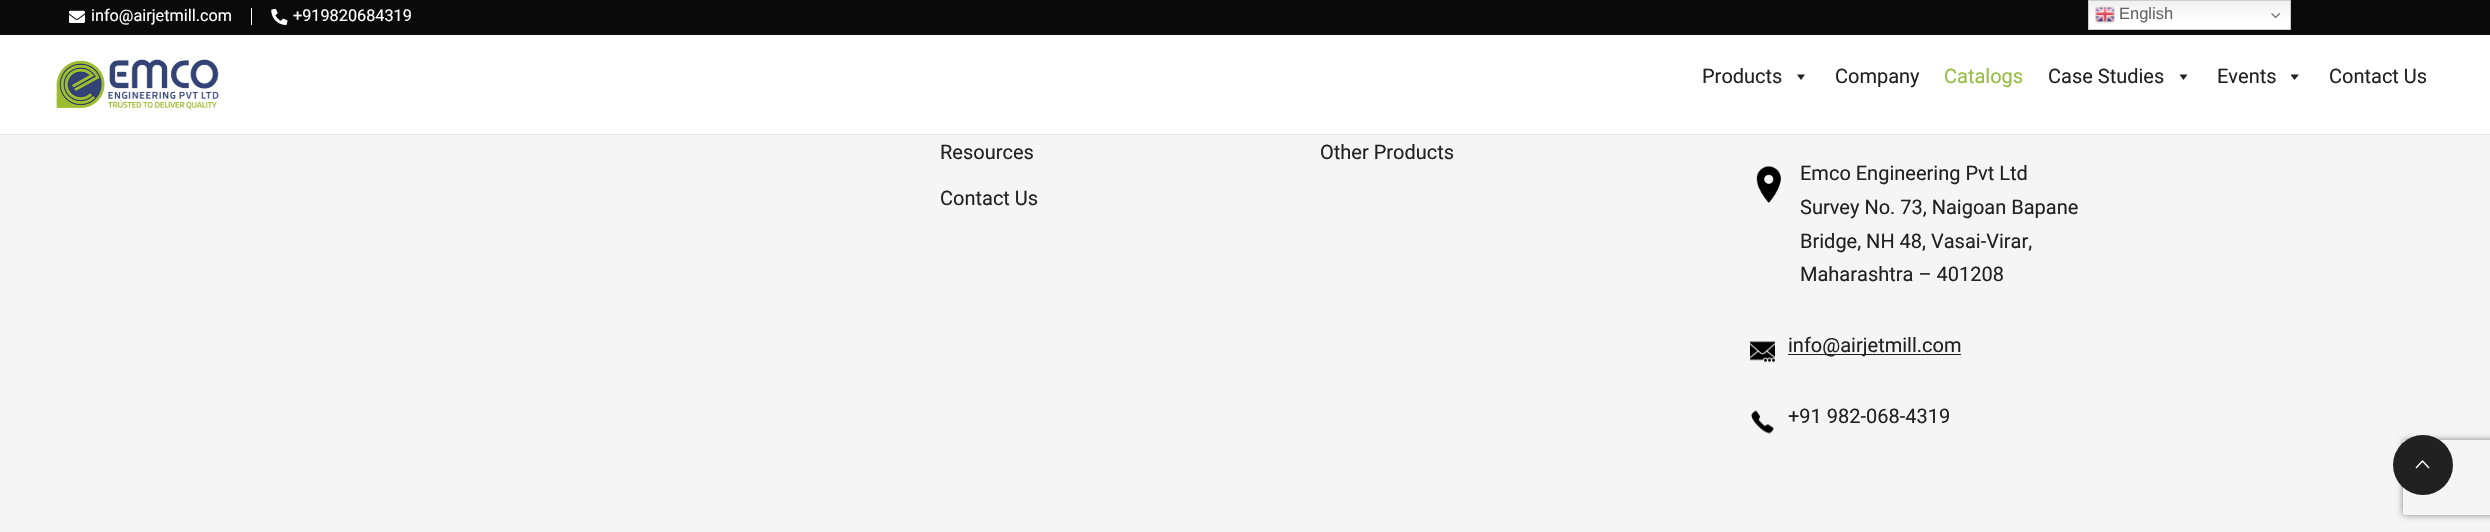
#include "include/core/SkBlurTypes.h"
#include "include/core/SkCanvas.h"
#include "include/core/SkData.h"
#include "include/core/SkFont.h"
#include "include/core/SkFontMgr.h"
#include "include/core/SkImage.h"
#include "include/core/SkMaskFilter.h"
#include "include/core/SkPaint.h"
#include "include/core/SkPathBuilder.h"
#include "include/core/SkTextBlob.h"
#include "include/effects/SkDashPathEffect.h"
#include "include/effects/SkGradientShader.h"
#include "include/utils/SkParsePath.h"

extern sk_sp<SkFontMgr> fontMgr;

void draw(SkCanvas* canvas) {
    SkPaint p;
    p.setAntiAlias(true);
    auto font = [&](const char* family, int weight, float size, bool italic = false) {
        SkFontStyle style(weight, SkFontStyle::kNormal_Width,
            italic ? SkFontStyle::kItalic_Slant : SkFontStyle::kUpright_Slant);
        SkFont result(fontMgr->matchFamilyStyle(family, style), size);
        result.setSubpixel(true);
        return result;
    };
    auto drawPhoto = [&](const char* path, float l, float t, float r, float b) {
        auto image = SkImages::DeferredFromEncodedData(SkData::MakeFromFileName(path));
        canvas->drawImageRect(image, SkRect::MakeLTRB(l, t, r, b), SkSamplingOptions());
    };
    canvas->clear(0xFFF5F5F5);
    p.setColor(0xFF0A0A0A);
    canvas->drawRect(SkRect::MakeLTRB(0, 0, 2490, 34), p);
    {
        const SkColor colors[] = {0xFFEFEFEF, 0xFFFFFFFF};
        const float stops[] = {0, 0.7f};
        const SkPoint ends[] = {{2189, 0}, {2189, 30}};
        p.setShader(SkGradientShader::MakeLinear(ends, colors, stops, 2, SkTileMode::kClamp));
        p.setAlpha(255);
    }
    canvas->drawRect(SkRect::MakeLTRB(2089, 1, 2290, 29), p);
    p.setStyle(SkPaint::kStroke_Style);
    p.setStrokeWidth(1);
    p.setShader(nullptr);
    p.setColor(0xFFCCCCCC);
    canvas->drawRect(SkRect::MakeLTRB(2088.5f, 0.5f, 2290.5f, 29.5f), p);
    drawPhoto("media/1.png", 2095, 6, 2115, 24);
    auto font1 = font("Liberation Sans", 400, 16.5f);
    p.setStyle(SkPaint::kFill_Style);
    p.setColor(0xFF666666);
    canvas->drawString("English", 2119, 19, font1, p);
    drawPhoto("media/2.png", 2271, 13, 2280, 19);
    p.setColor(0xFF0C0C0C);
    canvas->drawRect(SkRect::MakeLTRB(0, 34, 2490, 35), p);
    drawPhoto("media/3.png", 69, 10, 85, 23);
    auto font2 = font("Roboto", 400, 16.25f);
    p.setColor(0xFFFFFFFF);
    canvas->drawString("info@airjetmill.com", 91, 21, font2, p);
    canvas->drawRect(SkRect::MakeLTRB(251, 8, 252, 25), p);
    drawPhoto("media/4.png", 271, 9, 288, 25);
    canvas->drawString("+919820684319", 293, 21, font2, p);
    canvas->drawRect(SkRect::MakeLTRB(0, 35, 2490, 134), p);
    p.setColor(0xFFE4E4E4);
    canvas->drawRect(SkRect::MakeLTRB(0, 134, 2490, 135), p);
    drawPhoto("media/5.png", 56, 59, 219, 110);
    auto font3 = font("Roboto", 400, 20);
    p.setColor(0xFF212121);
    canvas->drawString("Products", 1702, 83, font3, p);
    canvas->drawPath(SkPathBuilder().moveTo(1805, 74.5f).lineTo(1801, 80).lineTo(1797, 74.5f).close().detach(), p);
    canvas->drawString("Company", 1835, 83, font3, p);
    p.setColor(0xFF95BD40);
    canvas->drawString("Catalogs", 1944, 83, font3, p);
    p.setColor(0xFF212121);
    canvas->drawString("Case Studies", 2048, 83, font3, p);
    canvas->drawPath(SkPathBuilder().moveTo(2187.5f, 74.5f).lineTo(2183.5f, 80).lineTo(2179.5f, 74.5f).close().detach(), p);
    canvas->drawString("Events", 2217, 83, font3, p);
    canvas->drawPath(SkPathBuilder().moveTo(2299, 74.5f).lineTo(2294.5f, 80).lineTo(2290.5f, 74.5f).close().detach(), p);
    {
        const struct { const char* s; float x, y; } items[] = {
            {"Contact Us", 2329, 83},
            {"Resources", 940, 159},
            {"Contact Us", 940, 205},
            {"Other Products", 1320, 159},
        };
        for (auto [s, x, y] : items) {
            canvas->drawString(s, x, y, font3, p);
        }
    }
    drawPhoto("media/6.png", 1756, 166, 1781, 203);
    {
        const struct { const char* s; float x, y; } items[] = {
            {"Emco Engineering Pvt Ltd", 1800, 180},
            {"Survey No. 73, Naigoan Bapane", 1800, 214},
            {"Bridge, NH 48, Vasai-Virar,", 1800, 248},
            {"Maharashtra – 401208", 1800, 281},
        };
        for (auto [s, x, y] : items) {
            canvas->drawString(s, x, y, font3, p);
        }
    }
    drawPhoto("media/7.png", 1750, 341, 1775, 363);
    canvas->drawRect(SkRect::MakeLTRB(1788, 354, 1961, 355), p);
    canvas->drawString("info@airjetmill.com", 1788, 352, font3, p);
    drawPhoto("media/8.png", 1751, 410, 1774, 434);
    canvas->drawString("+91 982-068-4319", 1788, 423, font3, p);
    canvas->save();
    canvas->clipPath(SkPathBuilder(SkPathFillType::kEvenOdd).moveTo(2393, 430).lineTo(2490, 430).lineTo(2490, 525).lineTo(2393, 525).close().moveTo(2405.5f, 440).lineTo(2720.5f, 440).cubicTo(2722, 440, 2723, 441, 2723, 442.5f).lineTo(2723, 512.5f).cubicTo(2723, 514, 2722, 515, 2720.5f, 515).lineTo(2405.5f, 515).cubicTo(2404, 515, 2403, 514, 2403, 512.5f).lineTo(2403, 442.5f).cubicTo(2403, 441, 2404, 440, 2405.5f, 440).close().detach(), true);
    p.setColor(0xFF808080);
    p.setMaskFilter(SkMaskFilter::MakeBlur(kNormal_SkBlurStyle, 3));
    canvas->drawRoundRect(SkRect::MakeLTRB(2403, 440, 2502, 515), 2.5f, 2.5f, p);
    p.setMaskFilter(nullptr);
    canvas->restore();
    p.setColor(0xFF212121);
    canvas->drawCircle(2423, 465, 30, p);
    p.setStyle(SkPaint::kStroke_Style);
    p.setStrokeWidth(1.4f);
    p.setStrokeJoin(SkPaint::kRound_Join);
    p.setColor(0xFFFFFFFF);
    canvas->drawPath(SkPathBuilder().moveTo(2416, 468).lineTo(2422.5f, 461).lineTo(2429, 468).detach(), p);
}
